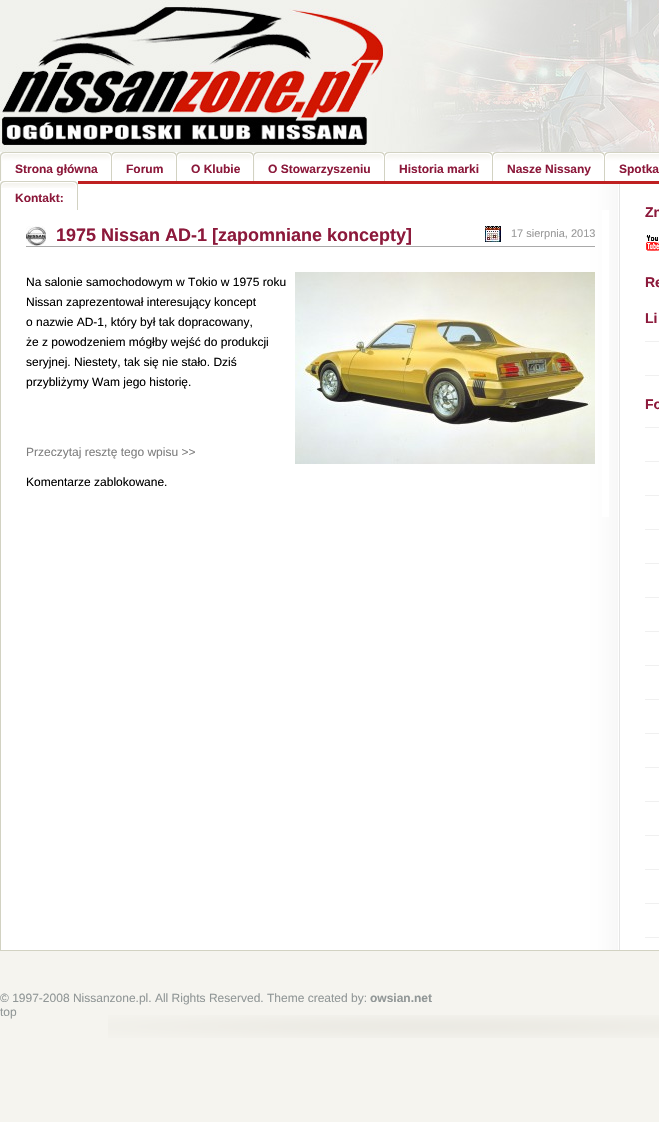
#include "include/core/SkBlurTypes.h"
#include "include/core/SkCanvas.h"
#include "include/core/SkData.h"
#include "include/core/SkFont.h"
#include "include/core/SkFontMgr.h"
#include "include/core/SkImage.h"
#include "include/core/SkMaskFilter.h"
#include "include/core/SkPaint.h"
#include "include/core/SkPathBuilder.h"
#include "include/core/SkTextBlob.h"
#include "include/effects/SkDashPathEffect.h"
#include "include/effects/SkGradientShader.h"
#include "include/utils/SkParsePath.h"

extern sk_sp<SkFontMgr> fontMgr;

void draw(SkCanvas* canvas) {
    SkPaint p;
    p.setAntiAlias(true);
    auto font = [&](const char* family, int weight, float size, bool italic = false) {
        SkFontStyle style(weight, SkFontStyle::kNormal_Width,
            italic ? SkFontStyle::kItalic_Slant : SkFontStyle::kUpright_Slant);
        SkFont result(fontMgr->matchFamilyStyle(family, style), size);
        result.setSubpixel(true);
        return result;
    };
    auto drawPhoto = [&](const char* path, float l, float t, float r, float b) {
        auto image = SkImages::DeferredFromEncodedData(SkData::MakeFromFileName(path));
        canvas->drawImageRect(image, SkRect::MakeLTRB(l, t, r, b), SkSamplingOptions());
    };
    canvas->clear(0xFFF5F4EF);
    drawPhoto("media/1.png", 0, 0, 659, 152);
    drawPhoto("media/2.png", 0, 152, 105, 181);
    auto font1 = font("Liberation Sans", 700, 12);
    p.setColor(0xFF8C193B);
    canvas->drawString("Strona główna", 15, 173, font1, p);
    drawPhoto("media/3.png", 105, 152, 112, 181);
    drawPhoto("media/4.png", 112, 152, 170, 181);
    canvas->drawString("Forum", 126, 173, font1, p);
    drawPhoto("media/3.png", 170, 152, 177, 181);
    drawPhoto("media/5.png", 177, 152, 247, 181);
    canvas->drawString("O Klubie", 191, 173, font1, p);
    drawPhoto("media/3.png", 247, 152, 254, 181);
    drawPhoto("media/6.png", 254, 152, 378, 181);
    canvas->drawString("O Stowarzyszeniu", 268, 173, font1, p);
    drawPhoto("media/3.png", 378, 152, 385, 181);
    drawPhoto("media/7.png", 385, 152, 486, 181);
    canvas->drawString("Historia marki", 399, 173, font1, p);
    drawPhoto("media/3.png", 486, 152, 493, 181);
    drawPhoto("media/8.png", 493, 152, 598, 181);
    canvas->drawString("Nasze Nissany", 507, 173, font1, p);
    drawPhoto("media/3.png", 598, 152, 605, 181);
    drawPhoto("media/9.png", 605, 152, 659, 181);
    canvas->drawString("Spotka", 619, 173, font1, p);
    p.setColor(0xFFFFFFFF);
    canvas->drawRect(SkRect::MakeLTRB(1, 184, 659, 950), p);
    p.setColor(0xFFBF2021);
    canvas->drawPath(SkPathBuilder().moveTo(0, 181).lineTo(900, 181).lineTo(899, 184).lineTo(1, 184).close().detach(), p);
    p.setColor(0xFFD2D2C2);
    canvas->drawRect(SkRect::MakeLTRB(0, 950, 659, 951), p);
    canvas->drawPath(SkPathBuilder().moveTo(0, 951).lineTo(0, 181).lineTo(1, 184).lineTo(1, 950).close().detach(), p);
    drawPhoto("media/10.png", 0, 181, 71, 188);
    p.setColor(0xFF8C193B);
    canvas->drawString("Kontakt:", 15, 202, font1, p);
    drawPhoto("media/3.png", 71, 181, 78, 210);
    drawPhoto("media/11.png", 563, 184, 620, 950);
    p.setColor(0xFFFFFFFF);
    canvas->drawRect(SkRect::MakeLTRB(602, 210, 609, 517), p);
    drawPhoto("media/12.png", 609, 210, 620, 517);
    p.setColor(0xFFA9A9A9);
    canvas->drawRect(SkRect::MakeLTRB(26, 246, 595, 247), p);
    drawPhoto("media/13.png", 26, 226, 46, 246);
    auto font2 = font("Liberation Sans", 700, 18);
    p.setColor(0xFF8C193B);
    canvas->drawString("1975 Nissan AD-1 [zapomniane koncepty]", 56, 241, font2, p);
    drawPhoto("media/14.png", 485, 226, 501, 242);
    auto font3 = font("Liberation Sans", 400, 11);
    p.setColor(0xFF999999);
    canvas->drawString("17 sierpnia, 2013", 511, 237, font3, p);
    auto font4 = font("Liberation Sans", 400, 12);
    p.setColor(0xFF000000);
    canvas->drawString("Na salonie samochodowym w Tokio w 1975 roku", 26, 286, font4, p);
    drawPhoto("media/15.png", 295, 272, 595, 464);
    {
        const struct { const char* s; float x, y; } items[] = {
            {"Nissan zaprezentował interesujący koncept", 26, 306},
            {"o nazwie AD-1, który był tak dopracowany,", 26, 326},
            {"że z powodzeniem mógłby wejść do produkcji", 26, 346},
            {"seryjnej. Niestety, tak się nie stało. Dziś", 26, 366},
            {"przybliżymy Wam jego historię.", 26, 386},
        };
        for (auto [s, x, y] : items) {
            canvas->drawString(s, x, y, font4, p);
        }
    }
    p.setColor(0xFF7F7F7F);
    canvas->drawString("Przeczytaj resztę tego wpisu >>", 26, 456, font4, p);
    p.setColor(0xFF000000);
    canvas->drawString("Komentarze zablokowane.", 26, 486, font4, p);
    auto font5 = font("Liberation Sans", 700, 14);
    p.setColor(0xFF8C193B);
    canvas->drawString("Zn", 645, 217, font5, p);
    drawPhoto("media/16.png", 646, 235, 659, 251);
    canvas->drawString("Re", 645, 287, font5, p);
    canvas->drawString("Li", 645, 323, font5, p);
    p.setColor(0xFFF0F0F0);
    canvas->drawRect(SkRect::MakeLTRB(645, 341, 659, 342), p);
    canvas->drawRect(SkRect::MakeLTRB(645, 375, 659, 376), p);
    p.setColor(0xFF8C193B);
    canvas->drawString("Fo", 645, 409, font5, p);
    {
        const struct { float l, t, r, b; SkColor color; } items[] = {
            {645, 427, 659, 428, 0xFFF0F0F0},
            {645, 461, 659, 462, 0xFFF0F0F0},
            {645, 495, 659, 496, 0xFFF0F0F0},
            {645, 529, 659, 530, 0xFFF0F0F0},
            {645, 563, 659, 564, 0xFFF0F0F0},
            {645, 597, 659, 598, 0xFFF0F0F0},
            {645, 631, 659, 632, 0xFFF0F0F0},
            {645, 665, 659, 666, 0xFFF0F0F0},
            {645, 699, 659, 700, 0xFFF0F0F0},
            {645, 733, 659, 734, 0xFFF0F0F0},
            {645, 767, 659, 768, 0xFFF0F0F0},
            {645, 801, 659, 802, 0xFFF0F0F0},
            {645, 835, 659, 836, 0xFFF0F0F0},
            {645, 869, 659, 870, 0xFFF0F0F0},
            {645, 903, 659, 904, 0xFFF0F0F0},
            {645, 937, 659, 938, 0xFFF0F0F0},
        };
        for (auto [l, t, r, b, color] : items) {
            p.setColor(color);
            canvas->drawRect(SkRect::MakeLTRB(l, t, r, b), p);
        }
    }
    drawPhoto("media/17.png", 108, 1015, 659, 1038);
    p.setColor(0xFF919797);
    canvas->drawString("© 1997-2008 Nissanzone.pl. All Rights Reserved. Theme created by:", 0, 1002, font4, p);
    canvas->drawString("owsian.net", 370, 1002, font1, p);
    canvas->drawString("top", 0, 1016, font4, p);
}
